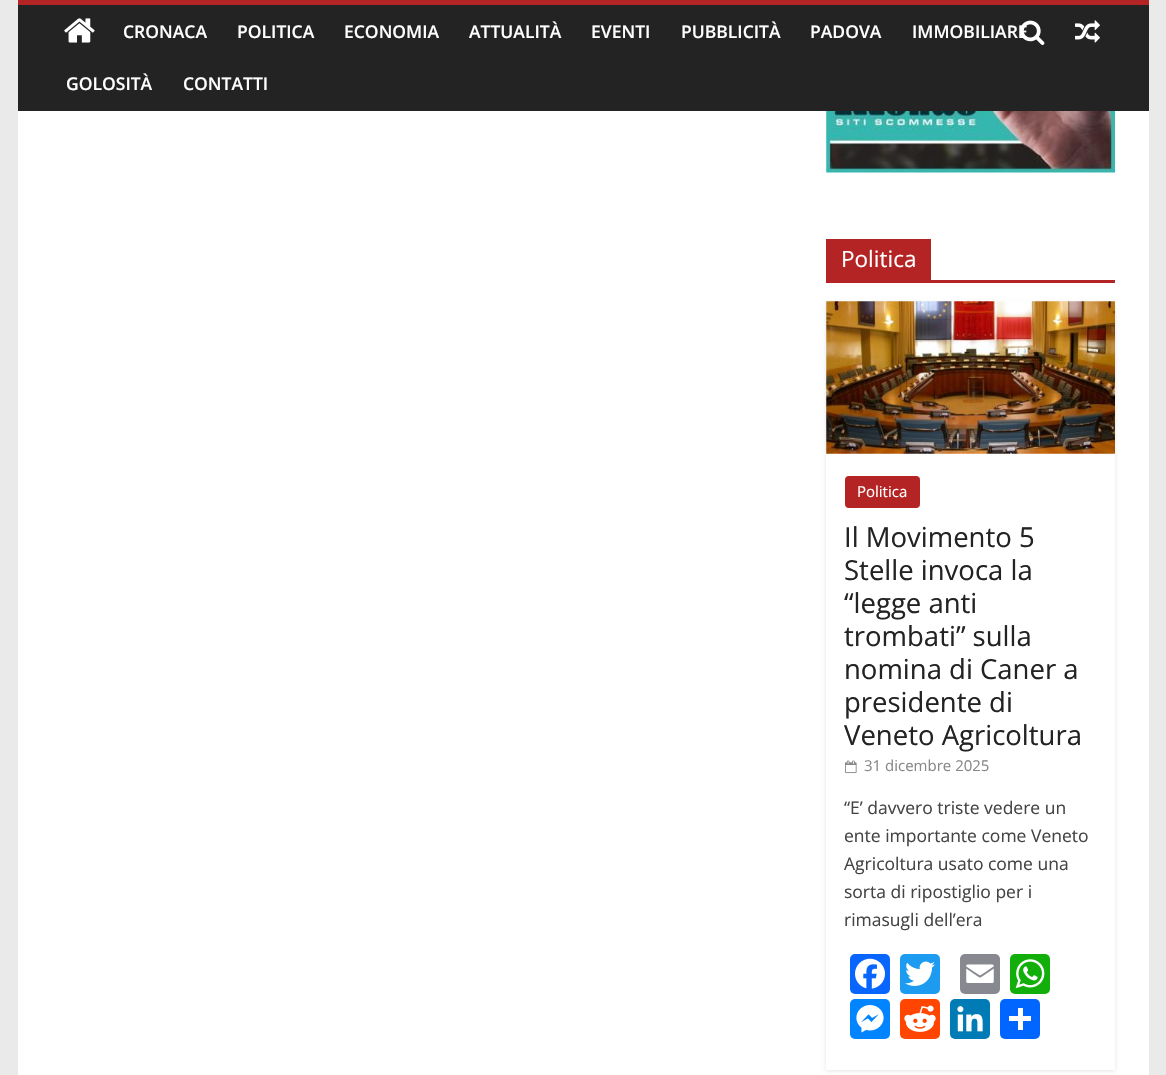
#include "include/core/SkBlurTypes.h"
#include "include/core/SkCanvas.h"
#include "include/core/SkData.h"
#include "include/core/SkFont.h"
#include "include/core/SkFontMgr.h"
#include "include/core/SkImage.h"
#include "include/core/SkMaskFilter.h"
#include "include/core/SkPaint.h"
#include "include/core/SkPathBuilder.h"
#include "include/core/SkTextBlob.h"
#include "include/effects/SkDashPathEffect.h"
#include "include/effects/SkGradientShader.h"
#include "include/utils/SkParsePath.h"

extern sk_sp<SkFontMgr> fontMgr;

void draw(SkCanvas* canvas) {
    SkPaint p;
    p.setAntiAlias(true);
    auto font = [&](const char* family, int weight, float size, bool italic = false) {
        SkFontStyle style(weight, SkFontStyle::kNormal_Width,
            italic ? SkFontStyle::kItalic_Slant : SkFontStyle::kUpright_Slant);
        SkFont result(fontMgr->matchFamilyStyle(family, style), size);
        result.setSubpixel(true);
        return result;
    };
    auto drawPhoto = [&](const char* path, float l, float t, float r, float b) {
        auto image = SkImages::DeferredFromEncodedData(SkData::MakeFromFileName(path));
        canvas->drawImageRect(image, SkRect::MakeLTRB(l, t, r, b), SkSamplingOptions());
    };
    canvas->clear(0xFFEAEAEA);
    p.setColor(0xFF232323);
    canvas->drawRect(SkRect::MakeLTRB(18, 5, 1149, 111), p);
    p.setColor(0xFFB52424);
    canvas->drawRect(SkRect::MakeLTRB(18, 0, 1149, 5), p);
    drawPhoto("media/1.png", 64, 18, 95, 43);
    auto font1 = font("Open Sans", 600, 17.5f);
    p.setColor(0xFFFFFFFF);
    canvas->drawString("IMMOBILIARE", 912, 38, font1, p);
    drawPhoto("media/2.png", 1021, 20, 1045, 45);
    drawPhoto("media/3.png", 1075, 20, 1100, 43);
    {
        const struct { const char* s; float x, y; } items[] = {
            {"CRONACA", 123, 38},
            {"POLITICA", 237, 38},
            {"ECONOMIA", 344, 38},
            {"ATTUALITÀ", 469, 38},
            {"EVENTI", 591, 38},
            {"PUBBLICITÀ", 681, 38},
            {"PADOVA", 810, 38},
            {"GOLOSITÀ", 66, 90},
            {"CONTATTI", 183, 90},
        };
        for (auto [s, x, y] : items) {
            canvas->drawString(s, x, y, font1, p);
        }
    }
    canvas->drawRect(SkRect::MakeLTRB(18, 111, 1149, 1075), p);
    drawPhoto("media/4.png", 826, 111, 1115, 173);
    p.setColor(0xFFB52424);
    canvas->drawRect(SkRect::MakeLTRB(826, 280, 1115, 283), p);
    canvas->drawRect(SkRect::MakeLTRB(826, 239, 931, 280), p);
    auto font2 = font("Open Sans", 400, 22.5f);
    p.setColor(0xFFFFFFFF);
    canvas->drawString("Politica", 841, 267, font2, p);
    p.setColor(0x1A000000);
    p.setMaskFilter(SkMaskFilter::MakeBlur(kNormal_SkBlurStyle, 2));
    canvas->drawRect(SkRect::MakeLTRB(826, 303, 1115, 1071), p);
    p.setMaskFilter(nullptr);
    p.setColor(0xFFFFFFFF);
    canvas->drawRect(SkRect::MakeLTRB(826, 301, 1115, 1070), p);
    drawPhoto("media/5.png", 826, 301, 1115, 454);
    p.setColor(0xFFB52424);
    canvas->drawRoundRect(SkRect::MakeLTRB(845, 476, 920, 508), 4, 4, p);
    auto font3 = font("Open Sans", 400, 15);
    p.setColor(0xFFFFFFFF);
    canvas->drawString("Politica", 857, 497, font3, p);
    auto font4 = font("Open Sans", 400, 27.5f);
    p.setColor(0xFF232323);
    {
        const struct { const char* s; float x, y; } items[] = {
            {"Il Movimento 5", 844, 547},
            {"Stelle invoca la", 844, 580},
            {"“legge anti", 844, 613},
            {"trombati” sulla", 844, 646},
            {"nomina di Caner a", 844, 679},
            {"presidente di", 844, 712},
            {"Veneto Agricoltura", 844, 745},
        };
        for (auto [s, x, y] : items) {
            canvas->drawString(s, x, y, font4, p);
        }
    }
    drawPhoto("media/6.png", 845, 760, 857, 774);
    p.setColor(0xFF888888);
    canvas->drawString("31 dicembre 2025", 864, 771, font3, p);
    auto font5 = font("Open Sans", 400, 17.5f);
    p.setColor(0xFF444444);
    {
        const struct { const char* s; float x, y; } items[] = {
            {"“E’ davvero triste vedere un", 844, 814},
            {"ente importante come Veneto", 844, 842},
            {"Agricoltura usato come una", 844, 870},
            {"sorta di ripostiglio per i", 844, 898},
            {"rimasugli dell’era", 844, 926},
        };
        for (auto [s, x, y] : items) {
            canvas->drawString(s, x, y, font5, p);
        }
    }
    p.setColor(0xFF0866FF);
    canvas->drawRoundRect(SkRect::MakeLTRB(850, 954, 890, 994), 5, 5, p);
    drawPhoto("media/7.png", 855, 958, 885, 989);
    p.setColor(0xFF1D9BF0);
    canvas->drawRoundRect(SkRect::MakeLTRB(900, 954, 940, 994), 5, 5, p);
    drawPhoto("media/8.png", 905, 961, 935, 986);
    p.setColor(0xFF888990);
    canvas->drawRoundRect(SkRect::MakeLTRB(960, 954, 1000, 994), 5, 5, p);
    drawPhoto("media/9.png", 966, 964, 994, 983);
    p.setColor(0xFF12AF0A);
    canvas->drawRoundRect(SkRect::MakeLTRB(1010, 954, 1050, 994), 5, 5, p);
    drawPhoto("media/10.png", 1015, 959, 1045, 989);
    p.setColor(0xFF0084FF);
    canvas->drawRoundRect(SkRect::MakeLTRB(850, 999, 890, 1039), 5, 5, p);
    drawPhoto("media/11.png", 856, 1005, 884, 1033);
    p.setColor(0xFFFF4500);
    canvas->drawRoundRect(SkRect::MakeLTRB(900, 999, 940, 1039), 5, 5, p);
    drawPhoto("media/12.png", 904, 1005, 936, 1032);
    p.setColor(0xFF007BB5);
    canvas->drawRoundRect(SkRect::MakeLTRB(950, 999, 990, 1039), 5, 5, p);
    drawPhoto("media/13.png", 957, 1006, 983, 1032);
    p.setColor(0xFF0166FF);
    canvas->drawRoundRect(SkRect::MakeLTRB(1000, 999, 1040, 1039), 5, 5, p);
    p.setColor(0xFFFFFFFF);
    canvas->drawRect(SkRect::MakeLTRB(1018, 1008, 1023, 1030), p);
    canvas->drawRect(SkRect::MakeLTRB(1009, 1016, 1031, 1021), p);
}
